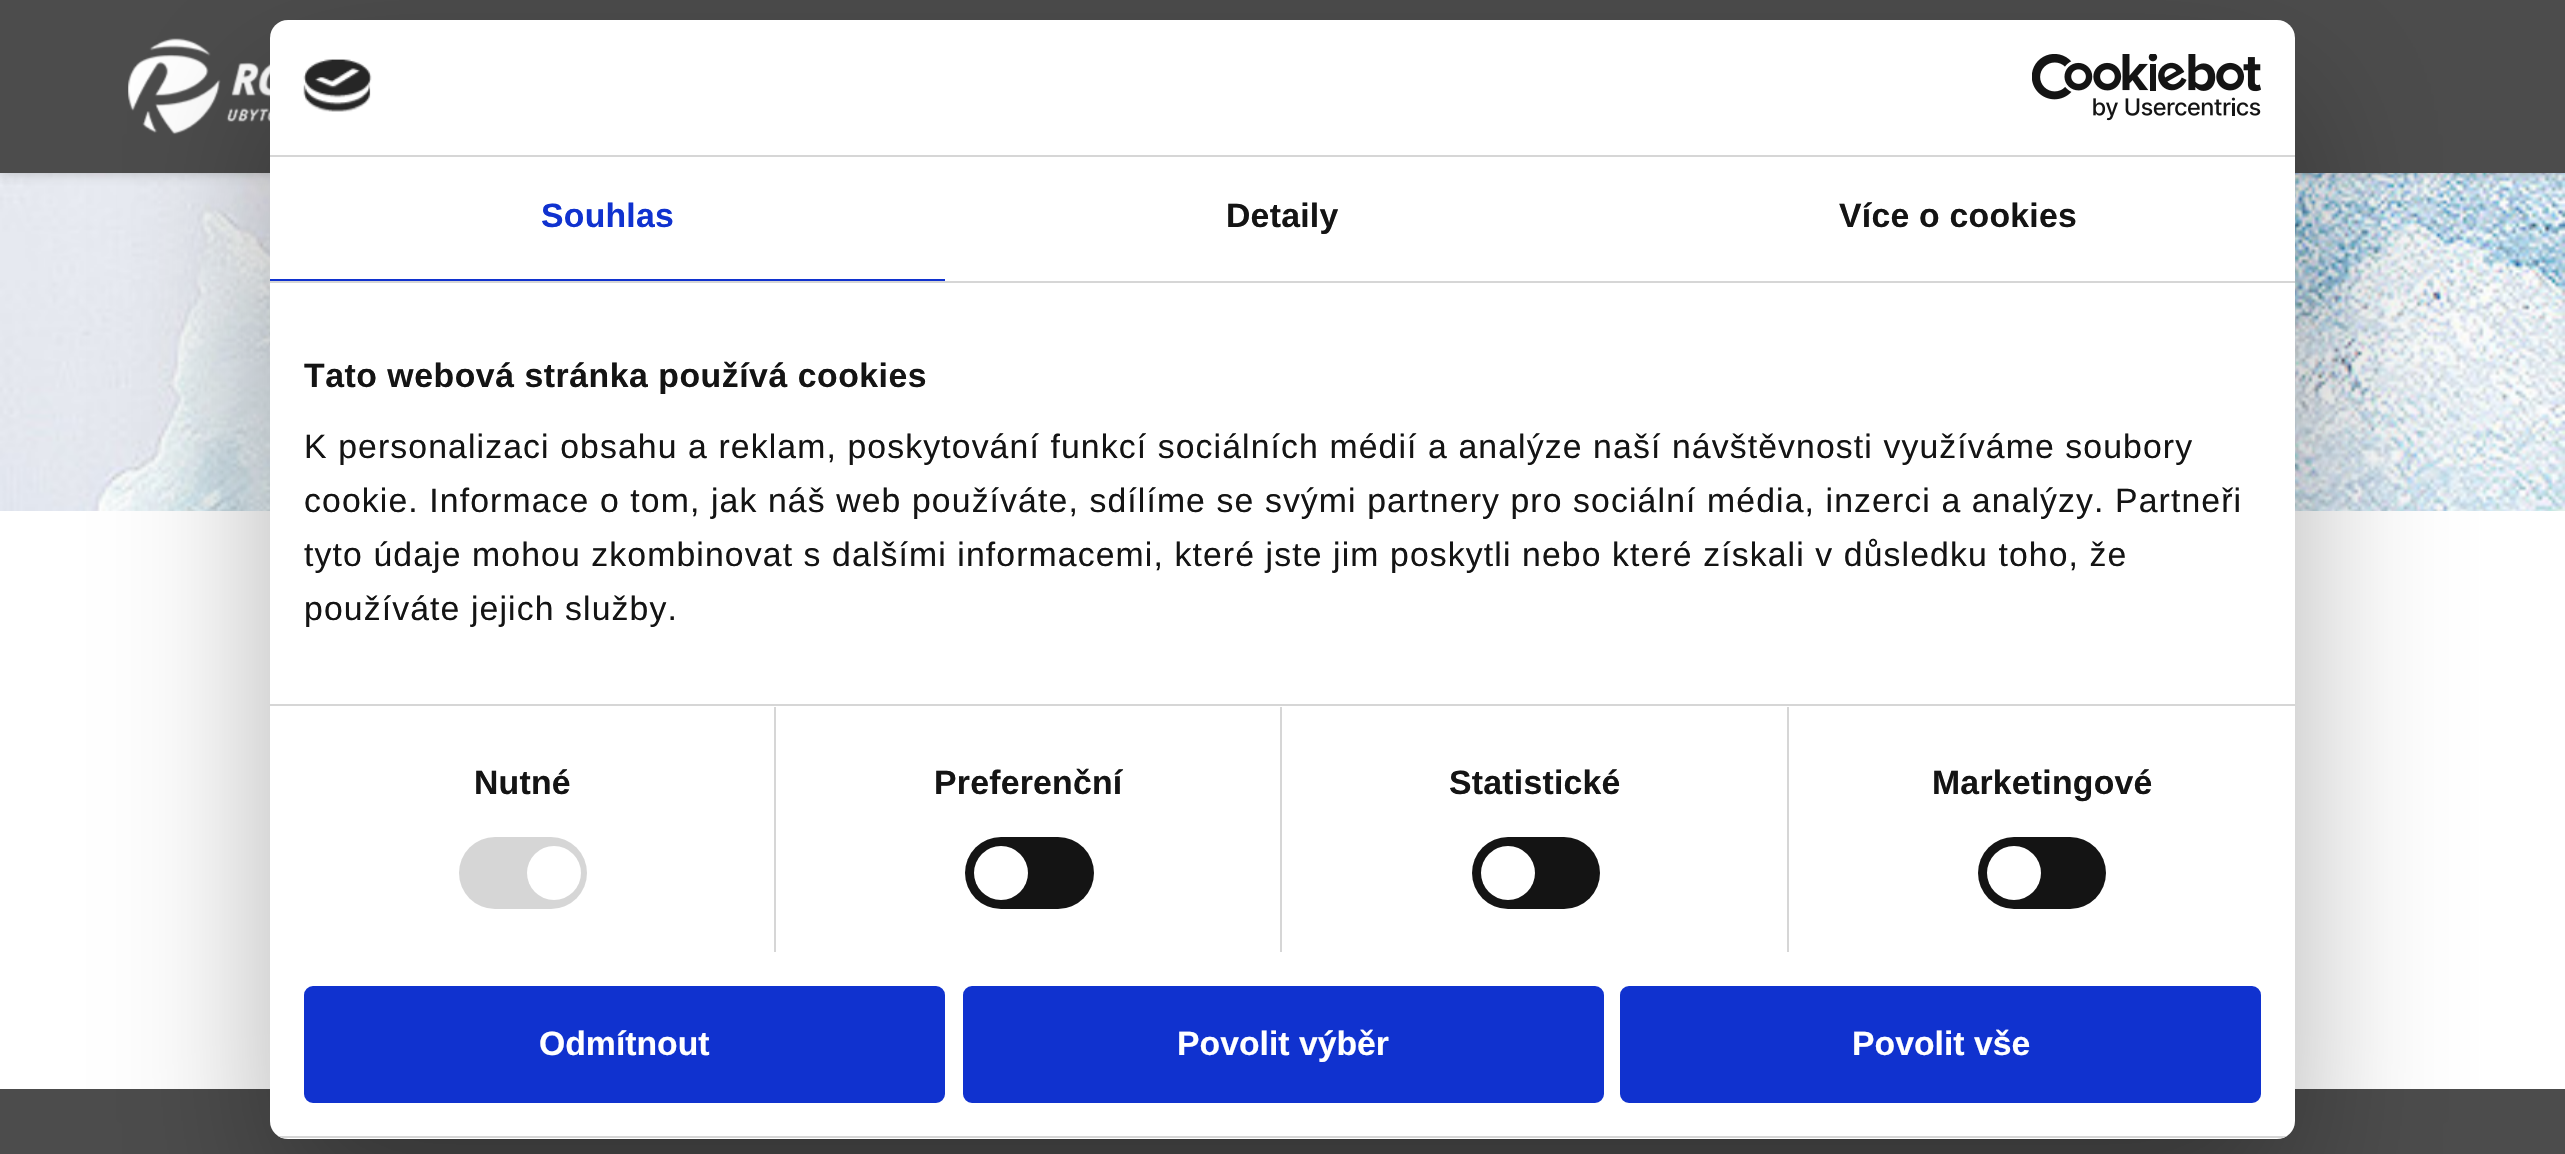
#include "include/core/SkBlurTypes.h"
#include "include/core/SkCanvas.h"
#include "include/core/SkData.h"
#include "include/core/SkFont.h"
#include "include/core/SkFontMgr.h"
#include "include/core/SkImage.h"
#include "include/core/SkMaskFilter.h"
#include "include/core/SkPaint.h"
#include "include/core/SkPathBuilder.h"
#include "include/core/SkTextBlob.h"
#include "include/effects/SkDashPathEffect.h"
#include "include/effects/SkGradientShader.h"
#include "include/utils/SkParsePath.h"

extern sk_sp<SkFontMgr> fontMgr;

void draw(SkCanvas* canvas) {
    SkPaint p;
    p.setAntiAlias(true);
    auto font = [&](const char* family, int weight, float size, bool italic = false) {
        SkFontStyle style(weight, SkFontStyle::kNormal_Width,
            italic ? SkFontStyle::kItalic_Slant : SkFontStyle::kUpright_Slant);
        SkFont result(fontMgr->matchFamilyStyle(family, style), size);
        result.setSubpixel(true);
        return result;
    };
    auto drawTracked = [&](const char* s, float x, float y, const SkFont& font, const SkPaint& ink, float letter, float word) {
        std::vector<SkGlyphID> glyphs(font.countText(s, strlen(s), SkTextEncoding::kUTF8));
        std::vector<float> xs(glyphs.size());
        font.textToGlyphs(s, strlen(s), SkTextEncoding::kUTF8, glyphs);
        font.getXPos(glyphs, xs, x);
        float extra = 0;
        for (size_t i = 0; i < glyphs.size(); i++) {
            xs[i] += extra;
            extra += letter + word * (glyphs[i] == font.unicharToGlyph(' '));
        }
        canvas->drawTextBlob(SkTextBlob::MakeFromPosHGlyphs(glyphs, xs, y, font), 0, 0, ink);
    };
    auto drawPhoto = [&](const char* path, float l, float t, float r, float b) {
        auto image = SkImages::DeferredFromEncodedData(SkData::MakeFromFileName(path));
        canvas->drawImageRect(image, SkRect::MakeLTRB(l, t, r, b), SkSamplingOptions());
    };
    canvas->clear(0xFFFFFFFF);
    drawPhoto("media/2.png", 0, 173, 2565, 511);
    p.setColor(0x4D4C4C4C);
    p.setMaskFilter(SkMaskFilter::MakeBlur(kNormal_SkBlurStyle, 6));
    canvas->drawRect(SkRect::MakeLTRB(0, 0, 2565, 173), p);
    p.setMaskFilter(nullptr);
    p.setColor(0xFF4C4C4C);
    canvas->drawRect(SkRect::MakeLTRB(0, 0, 2565, 173), p);
    drawPhoto("media/1.png", 128, 38, 270, 135);
    canvas->drawRect(SkRect::MakeLTRB(0, 1089, 2565, 1154), p);
    p.setColor(0x4D000000);
    p.setMaskFilter(SkMaskFilter::MakeBlur(kNormal_SkBlurStyle, 76.5f));
    canvas->drawRoundRect(SkRect::MakeLTRB(270, 92, 2295, 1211), 18, 18, p);
    p.setMaskFilter(nullptr);
    p.setColor(0xFFFFFFFF);
    canvas->drawRoundRect(SkRect::MakeLTRB(270, 20, 2295, 1139), 18, 18, p);
    p.setColor(0xFFD6D6D6);
    canvas->drawRect(SkRect::MakeLTRB(270, 155, 2295, 157), p);
    drawPhoto("media/3.png", 303, 59, 372, 112);
    drawPhoto("media/4.png", 2032, 54, 2261, 121);
    canvas->drawRect(SkRect::MakeLTRB(270, 281, 2295, 283), p);
    p.setColor(0xFF1032CF);
    canvas->drawRect(SkRect::MakeLTRB(270, 279, 945, 281), p);
    auto font1 = font("Liberation Sans", 700, 33.75f);
    drawTracked("Souhlas", 541, 227, font1, p, 0.25f, 0);
    p.setColor(0xFF141414);
    drawTracked("Detaily", 1226, 227, font1, p, 0.25f, 0);
    drawTracked("Více o cookies", 1839, 227, font1, p, 0.25f, 0);
    p.setColor(0xFFD6D6D6);
    canvas->drawRect(SkRect::MakeLTRB(270, 704, 2295, 706), p);
    p.setColor(0xFF141414);
    drawTracked("Tato webová stránka používá cookies", 304, 387, font1, p, 0.55f, 0);
    auto font2 = font("Liberation Sans", 400, 33.75f);
    {
        const struct { const char* s; float x, y; } items[] = {
            {"K personalizaci obsahu a reklam, poskytování funkcí sociálních médií a analýze naší návštěvnosti využíváme soubory", 304, 458},
            {"cookie. Informace o tom, jak náš web používáte, sdílíme se svými partnery pro sociální média, inzerci a analýzy. Partneři", 304, 512},
            {"tyto údaje mohou zkombinovat s dalšími informacemi, které jste jim poskytli nebo které získali v důsledku toho, že", 304, 566},
            {"používáte jejich služby.", 304, 620},
        };
        for (auto [s, x, y] : items) {
            drawTracked(s, x, y, font2, p, 1.12f, 0);
        }
    }
    p.setColor(0xFFD6D6D6);
    canvas->drawRect(SkRect::MakeLTRB(774, 707, 776, 952), p);
    p.setColor(0xFF141414);
    drawTracked("Nutné", 474, 794, font1, p, 0.25f, 0);
    p.setColor(0xFFD6D6D6);
    canvas->drawRoundRect(SkRect::MakeLTRB(459, 837, 587, 909), 36, 36, p);
    p.setColor(0xFFFFFFFF);
    canvas->drawCircle(554, 873, 27, p);
    p.setColor(0xFFD6D6D6);
    canvas->drawRect(SkRect::MakeLTRB(1280, 707, 1282, 952), p);
    p.setColor(0xFF141414);
    drawTracked("Preferenční", 934, 794, font1, p, 0.25f, 0);
    canvas->drawRoundRect(SkRect::MakeLTRB(965, 837, 1094, 909), 36, 36, p);
    p.setColor(0xFFFFFFFF);
    canvas->drawCircle(1001, 873, 27, p);
    p.setColor(0xFFD6D6D6);
    canvas->drawRect(SkRect::MakeLTRB(1787, 707, 1789, 952), p);
    p.setColor(0xFF141414);
    drawTracked("Statistické", 1449, 794, font1, p, 0.25f, 0);
    canvas->drawRoundRect(SkRect::MakeLTRB(1472, 837, 1600, 909), 36, 36, p);
    p.setColor(0xFFFFFFFF);
    canvas->drawCircle(1508, 873, 27, p);
    p.setColor(0xFF141414);
    drawTracked("Marketingové", 1932, 794, font1, p, 0.25f, 0);
    canvas->drawRoundRect(SkRect::MakeLTRB(1978, 837, 2106, 909), 36, 36, p);
    p.setColor(0xFFFFFFFF);
    canvas->drawCircle(2014, 873, 27, p);
    canvas->save();
    canvas->clipPath(SkPathBuilder().moveTo(288, 20).lineTo(2277, 20).cubicTo(2287, 20, 2295, 28, 2295, 38).lineTo(2295, 1121).cubicTo(2295, 1131, 2287, 1139, 2277, 1139).lineTo(288, 1139).cubicTo(278, 1139, 270, 1131, 270, 1121).lineTo(270, 38).cubicTo(270, 28, 278, 20, 288, 20).close().detach(), true);
    p.setColor(0xFFD6D6D6);
    canvas->drawRect(SkRect::MakeLTRB(270, 1136, 2295, 1138), p);
    canvas->restore();
    p.setColor(0xFF1032CF);
    canvas->drawRoundRect(SkRect::MakeLTRB(306.5f, 988.5f, 942.5f, 1100.5f), 6.5f, 6.5f, p);
    p.setStyle(SkPaint::kStroke_Style);
    p.setStrokeWidth(5);
    canvas->drawRoundRect(SkRect::MakeLTRB(306.5f, 988.5f, 942.5f, 1100.5f), 6.5f, 6.5f, p);
    p.setStyle(SkPaint::kFill_Style);
    p.setColor(0xFFFFFFFF);
    canvas->drawString("Odmítnout", 539, 1055, font1, p);
    p.setColor(0xFF1032CF);
    canvas->drawRoundRect(SkRect::MakeLTRB(965.5f, 988.5f, 1601.5f, 1100.5f), 6.5f, 6.5f, p);
    p.setStyle(SkPaint::kStroke_Style);
    canvas->drawRoundRect(SkRect::MakeLTRB(965.5f, 988.5f, 1601.5f, 1100.5f), 6.5f, 6.5f, p);
    p.setStyle(SkPaint::kFill_Style);
    p.setColor(0xFFFFFFFF);
    canvas->drawString("Povolit výběr", 1177, 1055, font1, p);
    p.setColor(0xFF1032CF);
    canvas->drawRoundRect(SkRect::MakeLTRB(1622.5f, 988.5f, 2258.5f, 1100.5f), 6.5f, 6.5f, p);
    p.setStyle(SkPaint::kStroke_Style);
    canvas->drawRoundRect(SkRect::MakeLTRB(1622.5f, 988.5f, 2258.5f, 1100.5f), 6.5f, 6.5f, p);
    p.setStyle(SkPaint::kFill_Style);
    p.setColor(0xFFFFFFFF);
    canvas->drawString("Povolit vše", 1852, 1055, font1, p);
}
